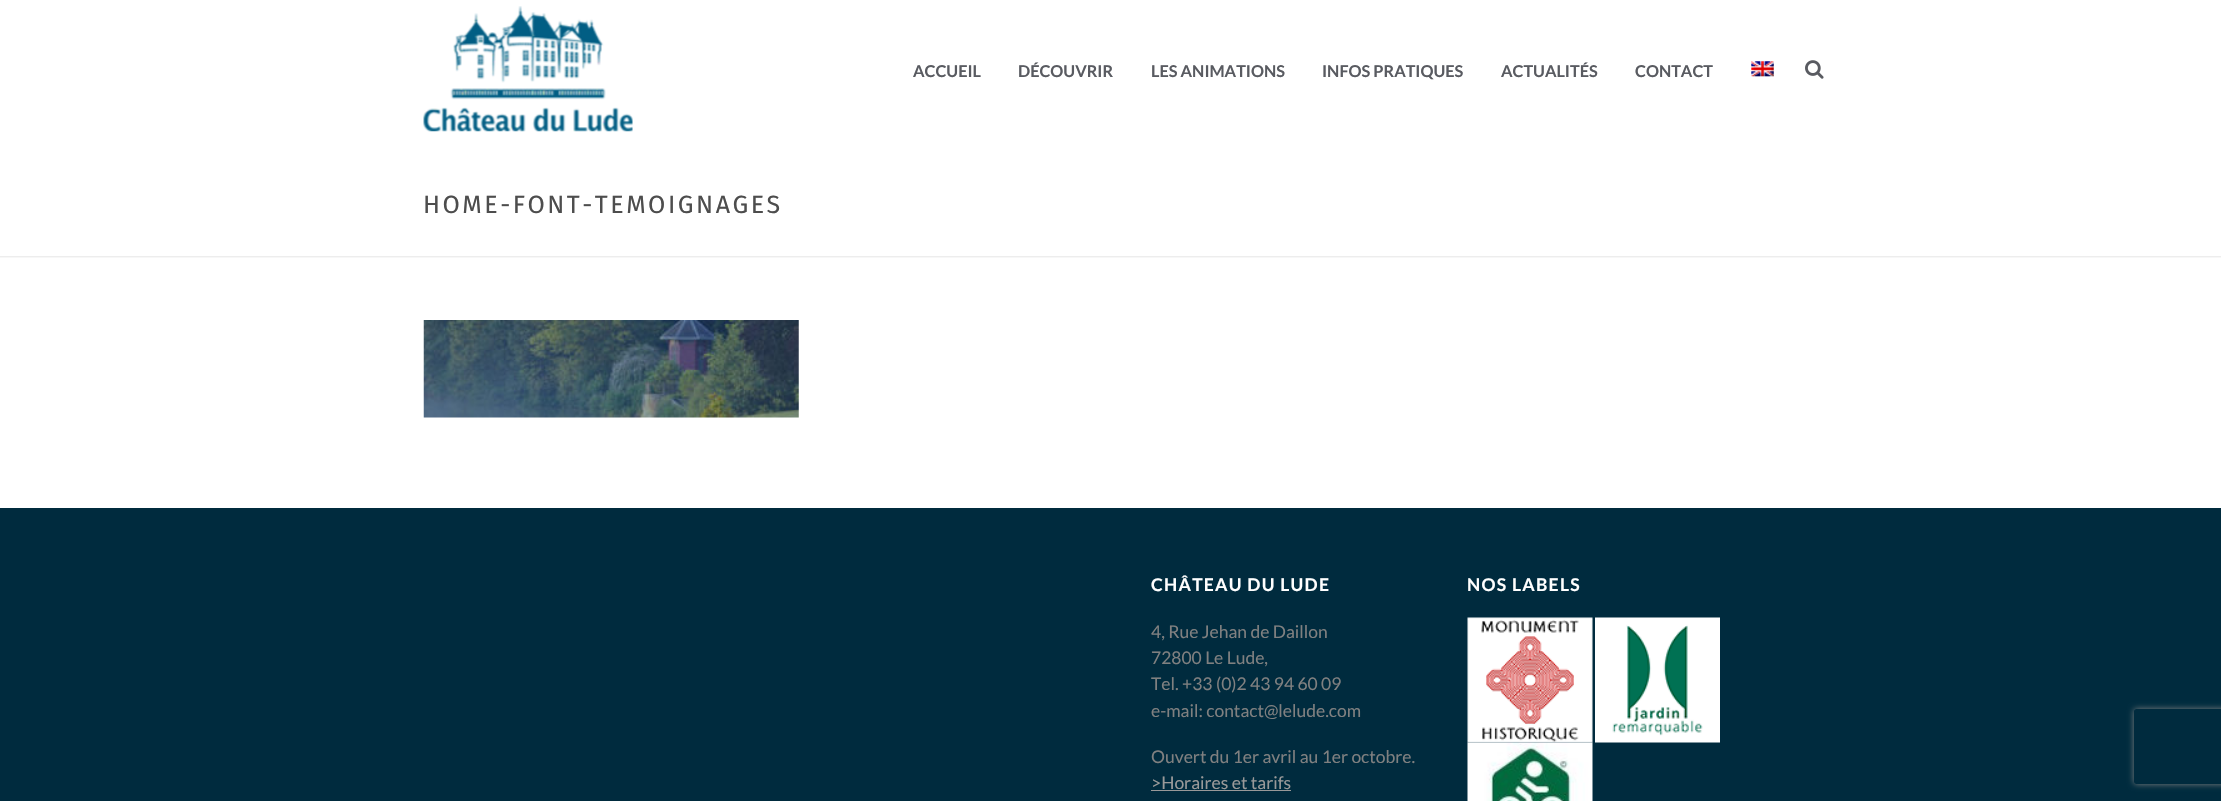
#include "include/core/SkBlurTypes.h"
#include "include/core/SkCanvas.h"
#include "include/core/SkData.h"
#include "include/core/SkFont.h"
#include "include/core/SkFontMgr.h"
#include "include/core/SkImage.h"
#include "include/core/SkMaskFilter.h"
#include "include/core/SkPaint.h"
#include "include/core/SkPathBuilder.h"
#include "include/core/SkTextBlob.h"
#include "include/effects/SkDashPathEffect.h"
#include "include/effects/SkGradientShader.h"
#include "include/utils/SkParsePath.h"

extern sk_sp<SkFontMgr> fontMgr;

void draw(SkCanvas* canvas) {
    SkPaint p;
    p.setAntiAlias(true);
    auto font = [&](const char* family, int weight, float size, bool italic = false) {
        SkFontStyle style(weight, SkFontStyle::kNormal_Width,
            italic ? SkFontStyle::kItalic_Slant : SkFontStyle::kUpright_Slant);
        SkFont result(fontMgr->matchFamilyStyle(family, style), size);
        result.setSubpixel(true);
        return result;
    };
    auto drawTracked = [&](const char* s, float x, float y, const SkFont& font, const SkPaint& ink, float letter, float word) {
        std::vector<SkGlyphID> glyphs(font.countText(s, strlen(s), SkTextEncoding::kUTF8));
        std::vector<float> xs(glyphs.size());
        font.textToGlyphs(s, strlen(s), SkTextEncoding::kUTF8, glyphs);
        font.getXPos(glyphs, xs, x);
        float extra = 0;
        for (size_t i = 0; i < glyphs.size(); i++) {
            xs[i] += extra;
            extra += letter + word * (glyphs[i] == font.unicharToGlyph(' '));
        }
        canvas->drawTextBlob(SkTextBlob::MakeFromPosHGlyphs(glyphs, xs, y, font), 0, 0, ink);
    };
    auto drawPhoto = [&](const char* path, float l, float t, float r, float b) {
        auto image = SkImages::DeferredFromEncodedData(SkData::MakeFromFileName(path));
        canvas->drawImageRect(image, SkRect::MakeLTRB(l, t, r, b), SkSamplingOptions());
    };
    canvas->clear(0xFFFFFFFF);
    p.setColor(0xFFF7F7F7);
    canvas->drawRect(SkRect::MakeLTRB(0, 257, 2221, 258), p);
    p.setColor(0xFFEDEDED);
    canvas->drawRect(SkRect::MakeLTRB(0, 256, 2221, 257), p);
    drawPhoto("media/1.png", 423, 6, 633, 132);
    auto font1 = font("Lato", 700, 16.25f);
    p.setColor(0xFF595B61);
    {
        const struct { const char* s; float x, y; } items[] = {
            {"ACCUEIL", 913, 77},
            {"DÉCOUVRIR", 1018, 77},
            {"LES ANIMATIONS", 1151, 77},
            {"INFOS PRATIQUES", 1322, 77},
            {"ACTUALITÉS", 1501, 77},
            {"CONTACT", 1635, 77},
        };
        for (auto [s, x, y] : items) {
            canvas->drawString(s, x, y, font1, p);
        }
    }
    drawPhoto("media/2.png", 1751, 61, 1774, 77);
    drawPhoto("media/3.png", 1805, 60, 1824, 79);
    auto font2 = font("Fira Sans", 400, 25);
    p.setColor(0xFF4D4D4D);
    drawTracked("HOME-FONT-TEMOIGNAGES", 423, 213, font2, p, 2.5f, 0);
    drawPhoto("media/4.png", 423, 320, 799, 418);
    p.setColor(0xFF002B3E);
    canvas->drawRect(SkRect::MakeLTRB(0, 508, 2221, 801), p);
    auto font3 = font("Lato", 700, 17.5f);
    p.setColor(0xFFFFFFFF);
    drawTracked("CHÂTEAU DU LUDE", 1151, 591, font3, p, 1.25f, 0);
    auto font4 = font("Lato", 400, 17.5f);
    p.setColor(0xFF808080);
    {
        const struct { const char* s; float x, y; } items[] = {
            {"4, Rue Jehan de Daillon", 1151, 638},
            {"72800 Le Lude,", 1151, 664},
            {"Tel. +33 (0)2 43 94 60 09", 1151, 690},
            {"e-mail: contact@lelude.com", 1151, 717},
            {"Ouvert du 1er avril au 1er octobre.", 1151, 763},
        };
        for (auto [s, x, y] : items) {
            canvas->drawString(s, x, y, font4, p);
        }
    }
    p.setColor(0xFF999999);
    canvas->drawString(">Horaires et tarifs", 1151, 789, font4, p);
    canvas->drawRect(SkRect::MakeLTRB(1151, 790, 1291, 791), p);
    p.setColor(0xFFFFFFFF);
    drawTracked("NOS LABELS", 1467, 591, font3, p, 1.25f, 0);
    drawPhoto("media/5.png", 1467, 617, 1593, 743);
    drawPhoto("media/6.png", 1595, 617, 1720, 743);
    drawPhoto("media/7.png", 1467, 742, 1593, 801);
    canvas->save();
    canvas->clipPath(SkPathBuilder(SkPathFillType::kEvenOdd).moveTo(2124, 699).lineTo(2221, 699).lineTo(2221, 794).lineTo(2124, 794).close().moveTo(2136.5f, 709).lineTo(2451.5f, 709).cubicTo(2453, 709, 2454, 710, 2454, 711.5f).lineTo(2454, 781.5f).cubicTo(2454, 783, 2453, 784, 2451.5f, 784).lineTo(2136.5f, 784).cubicTo(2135, 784, 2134, 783, 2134, 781.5f).lineTo(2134, 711.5f).cubicTo(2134, 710, 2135, 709, 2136.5f, 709).close().detach(), true);
    p.setColor(0xFF808080);
    p.setMaskFilter(SkMaskFilter::MakeBlur(kNormal_SkBlurStyle, 3));
    canvas->drawRoundRect(SkRect::MakeLTRB(2134, 709, 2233, 784), 2.5f, 2.5f, p);
    p.setMaskFilter(nullptr);
    canvas->restore();
}
